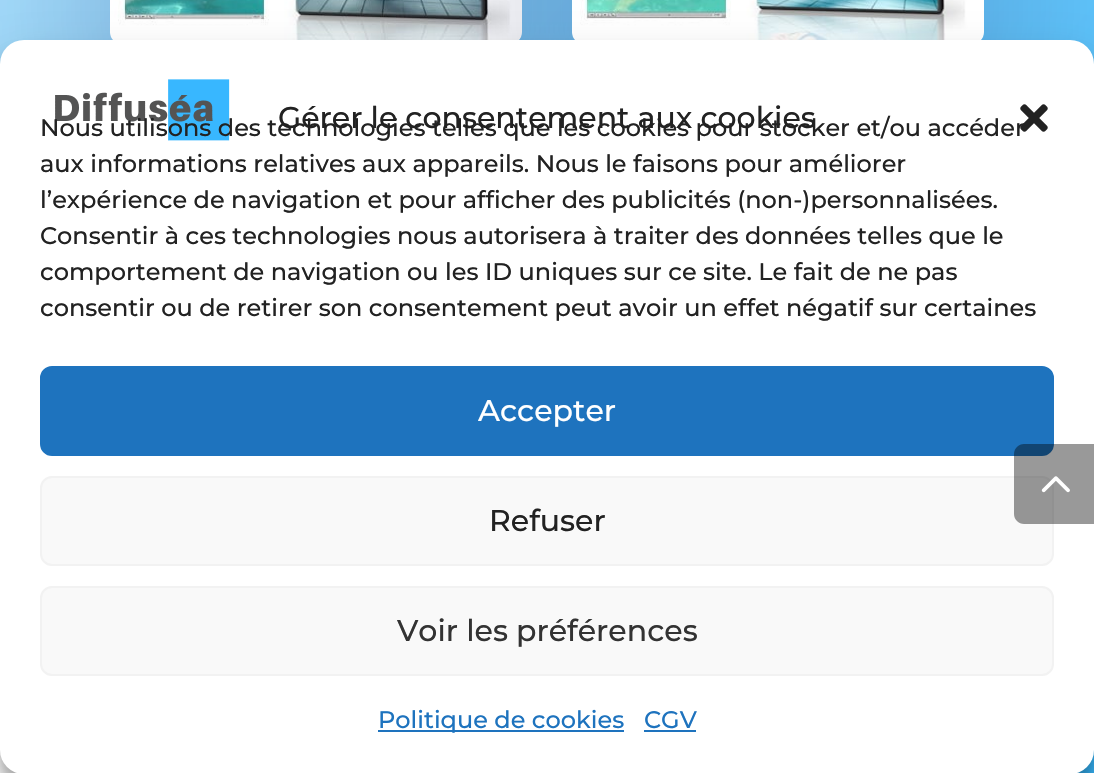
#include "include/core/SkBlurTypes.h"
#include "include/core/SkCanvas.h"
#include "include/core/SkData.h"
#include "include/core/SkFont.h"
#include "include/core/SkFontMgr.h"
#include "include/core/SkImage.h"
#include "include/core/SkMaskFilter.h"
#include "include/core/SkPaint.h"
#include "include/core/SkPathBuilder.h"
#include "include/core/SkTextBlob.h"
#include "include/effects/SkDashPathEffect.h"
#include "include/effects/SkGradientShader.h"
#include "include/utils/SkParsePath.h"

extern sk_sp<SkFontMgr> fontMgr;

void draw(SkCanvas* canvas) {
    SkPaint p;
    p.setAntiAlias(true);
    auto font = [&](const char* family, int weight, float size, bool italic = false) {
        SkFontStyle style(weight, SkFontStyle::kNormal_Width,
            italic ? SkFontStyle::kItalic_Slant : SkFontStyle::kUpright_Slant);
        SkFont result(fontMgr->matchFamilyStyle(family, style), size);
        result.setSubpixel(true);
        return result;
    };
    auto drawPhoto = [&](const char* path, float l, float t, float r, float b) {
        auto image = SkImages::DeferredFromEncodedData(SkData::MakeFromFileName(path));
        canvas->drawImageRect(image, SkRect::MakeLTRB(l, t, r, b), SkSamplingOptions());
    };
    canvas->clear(0xFFFFFFFF);
    {
        const SkColor colors[] = {0xFFF2FAFF, 0xFF35B8FF};
        const float stops[] = {0.25f, 1};
        const SkPoint ends[] = {{-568, -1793}, {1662, 145}};
        p.setShader(SkGradientShader::MakeLinear(ends, colors, stops, 2, SkTileMode::kClamp));
        p.setAlpha(255);
    }
    canvas->drawRect(SkRect::MakeLTRB(0, 0, 1094, 773), p);
    p.setShader(nullptr);
    p.setColor(0x54000645);
    p.setMaskFilter(SkMaskFilter::MakeBlur(kNormal_SkBlurStyle, 120));
    canvas->drawRoundRect(SkRect::MakeLTRB(110, -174, 522, 140), 12, 12, p);
    p.setMaskFilter(nullptr);
    drawPhoto("media/1.png", 110, 0, 522, 40);
    p.setMaskFilter(SkMaskFilter::MakeBlur(kNormal_SkBlurStyle, 120));
    canvas->drawRoundRect(SkRect::MakeLTRB(572, -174, 984, 140), 12, 12, p);
    p.setMaskFilter(nullptr);
    drawPhoto("media/2.png", 572, 0, 984, 40);
    drawPhoto("media/3.png", 0, 750, 17, 773);
    p.setColor(0x3B000000);
    p.setMaskFilter(SkMaskFilter::MakeBlur(kNormal_SkBlurStyle, 6));
    canvas->drawRoundRect(SkRect::MakeLTRB(0, 52, 1094, 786), 24, 24, p);
    p.setMaskFilter(nullptr);
    p.setColor(0x30000000);
    p.setMaskFilter(SkMaskFilter::MakeBlur(kNormal_SkBlurStyle, 20));
    canvas->drawRoundRect(SkRect::MakeLTRB(0, 60, 1094, 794), 24, 24, p);
    p.setMaskFilter(nullptr);
    p.setColor(0xFFFFFFFF);
    canvas->drawRoundRect(SkRect::MakeLTRB(0, 40, 1094, 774), 24, 24, p);
    drawPhoto("media/4.png", 55, 79, 230, 141);
    auto font1 = font("Montserrat", 100, 30);
    p.setColor(0xFF222222);
    canvas->drawString("Gérer le consentement aux cookies", 278, 128, font1, p);
    drawPhoto("media/5.png", 1020, 104, 1048, 132);
    auto font2 = font("Montserrat", 100, 24);
    {
        const struct { const char* s; float x, y; } items[] = {
            {"Nous utilisons des technologies telles que les cookies pour stocker et/ou accéder", 40, 136},
            {"aux informations relatives aux appareils. Nous le faisons pour améliorer", 40, 172},
            {"l’expérience de navigation et pour afficher des publicités (non-)personnalisées.", 40, 208},
            {"Consentir à ces technologies nous autorisera à traiter des données telles que le", 40, 244},
            {"comportement de navigation ou les ID uniques sur ce site. Le fait de ne pas", 40, 280},
            {"consentir ou de retirer son consentement peut avoir un effet négatif sur certaines", 40, 316},
        };
        for (auto [s, x, y] : items) {
            canvas->drawString(s, x, y, font2, p);
        }
    }
    p.setColor(0xFF1E73BE);
    canvas->drawRoundRect(SkRect::MakeLTRB(41, 367, 1053, 455), 11, 11, p);
    p.setStyle(SkPaint::kStroke_Style);
    p.setStrokeWidth(2);
    canvas->drawRoundRect(SkRect::MakeLTRB(41, 367, 1053, 455), 11, 11, p);
    p.setStyle(SkPaint::kFill_Style);
    p.setColor(0xFFFFFFFF);
    canvas->drawString("Accepter", 478, 421, font1, p);
    p.setColor(0xFFF9F9F9);
    canvas->drawRoundRect(SkRect::MakeLTRB(41, 477, 1053, 565), 11, 11, p);
    p.setStyle(SkPaint::kStroke_Style);
    p.setColor(0xFFF2F2F2);
    canvas->drawRoundRect(SkRect::MakeLTRB(41, 477, 1053, 565), 11, 11, p);
    p.setStyle(SkPaint::kFill_Style);
    p.setColor(0xFF222222);
    canvas->drawString("Refuser", 489, 531, font1, p);
    p.setColor(0xFFF9F9F9);
    canvas->drawRoundRect(SkRect::MakeLTRB(41, 587, 1053, 675), 11, 11, p);
    p.setStyle(SkPaint::kStroke_Style);
    p.setColor(0xFFF2F2F2);
    canvas->drawRoundRect(SkRect::MakeLTRB(41, 587, 1053, 675), 11, 11, p);
    p.setStyle(SkPaint::kFill_Style);
    p.setColor(0xFF333333);
    canvas->drawString("Voir les préférences", 397, 641, font1, p);
    p.setColor(0xFF1E73BE);
    canvas->drawRect(SkRect::MakeLTRB(378, 730, 624, 732), p);
    canvas->drawString("Politique de cookies", 378, 728, font2, p);
    canvas->drawString("CGV", 644, 728, font2, p);
    canvas->drawRect(SkRect::MakeLTRB(644, 730, 696, 732), p);
    p.setColor(0x66000000);
    canvas->drawPath(SkPathBuilder().moveTo(1024, 444).lineTo(1094, 444).lineTo(1094, 524).lineTo(1024, 524).cubicTo(1018.5f, 524, 1014, 519.5f, 1014, 514).lineTo(1014, 454).cubicTo(1014, 448.5f, 1018.5f, 444, 1024, 444).close().detach(), p);
    drawPhoto("media/6.png", 1041, 476, 1070, 493);
}
